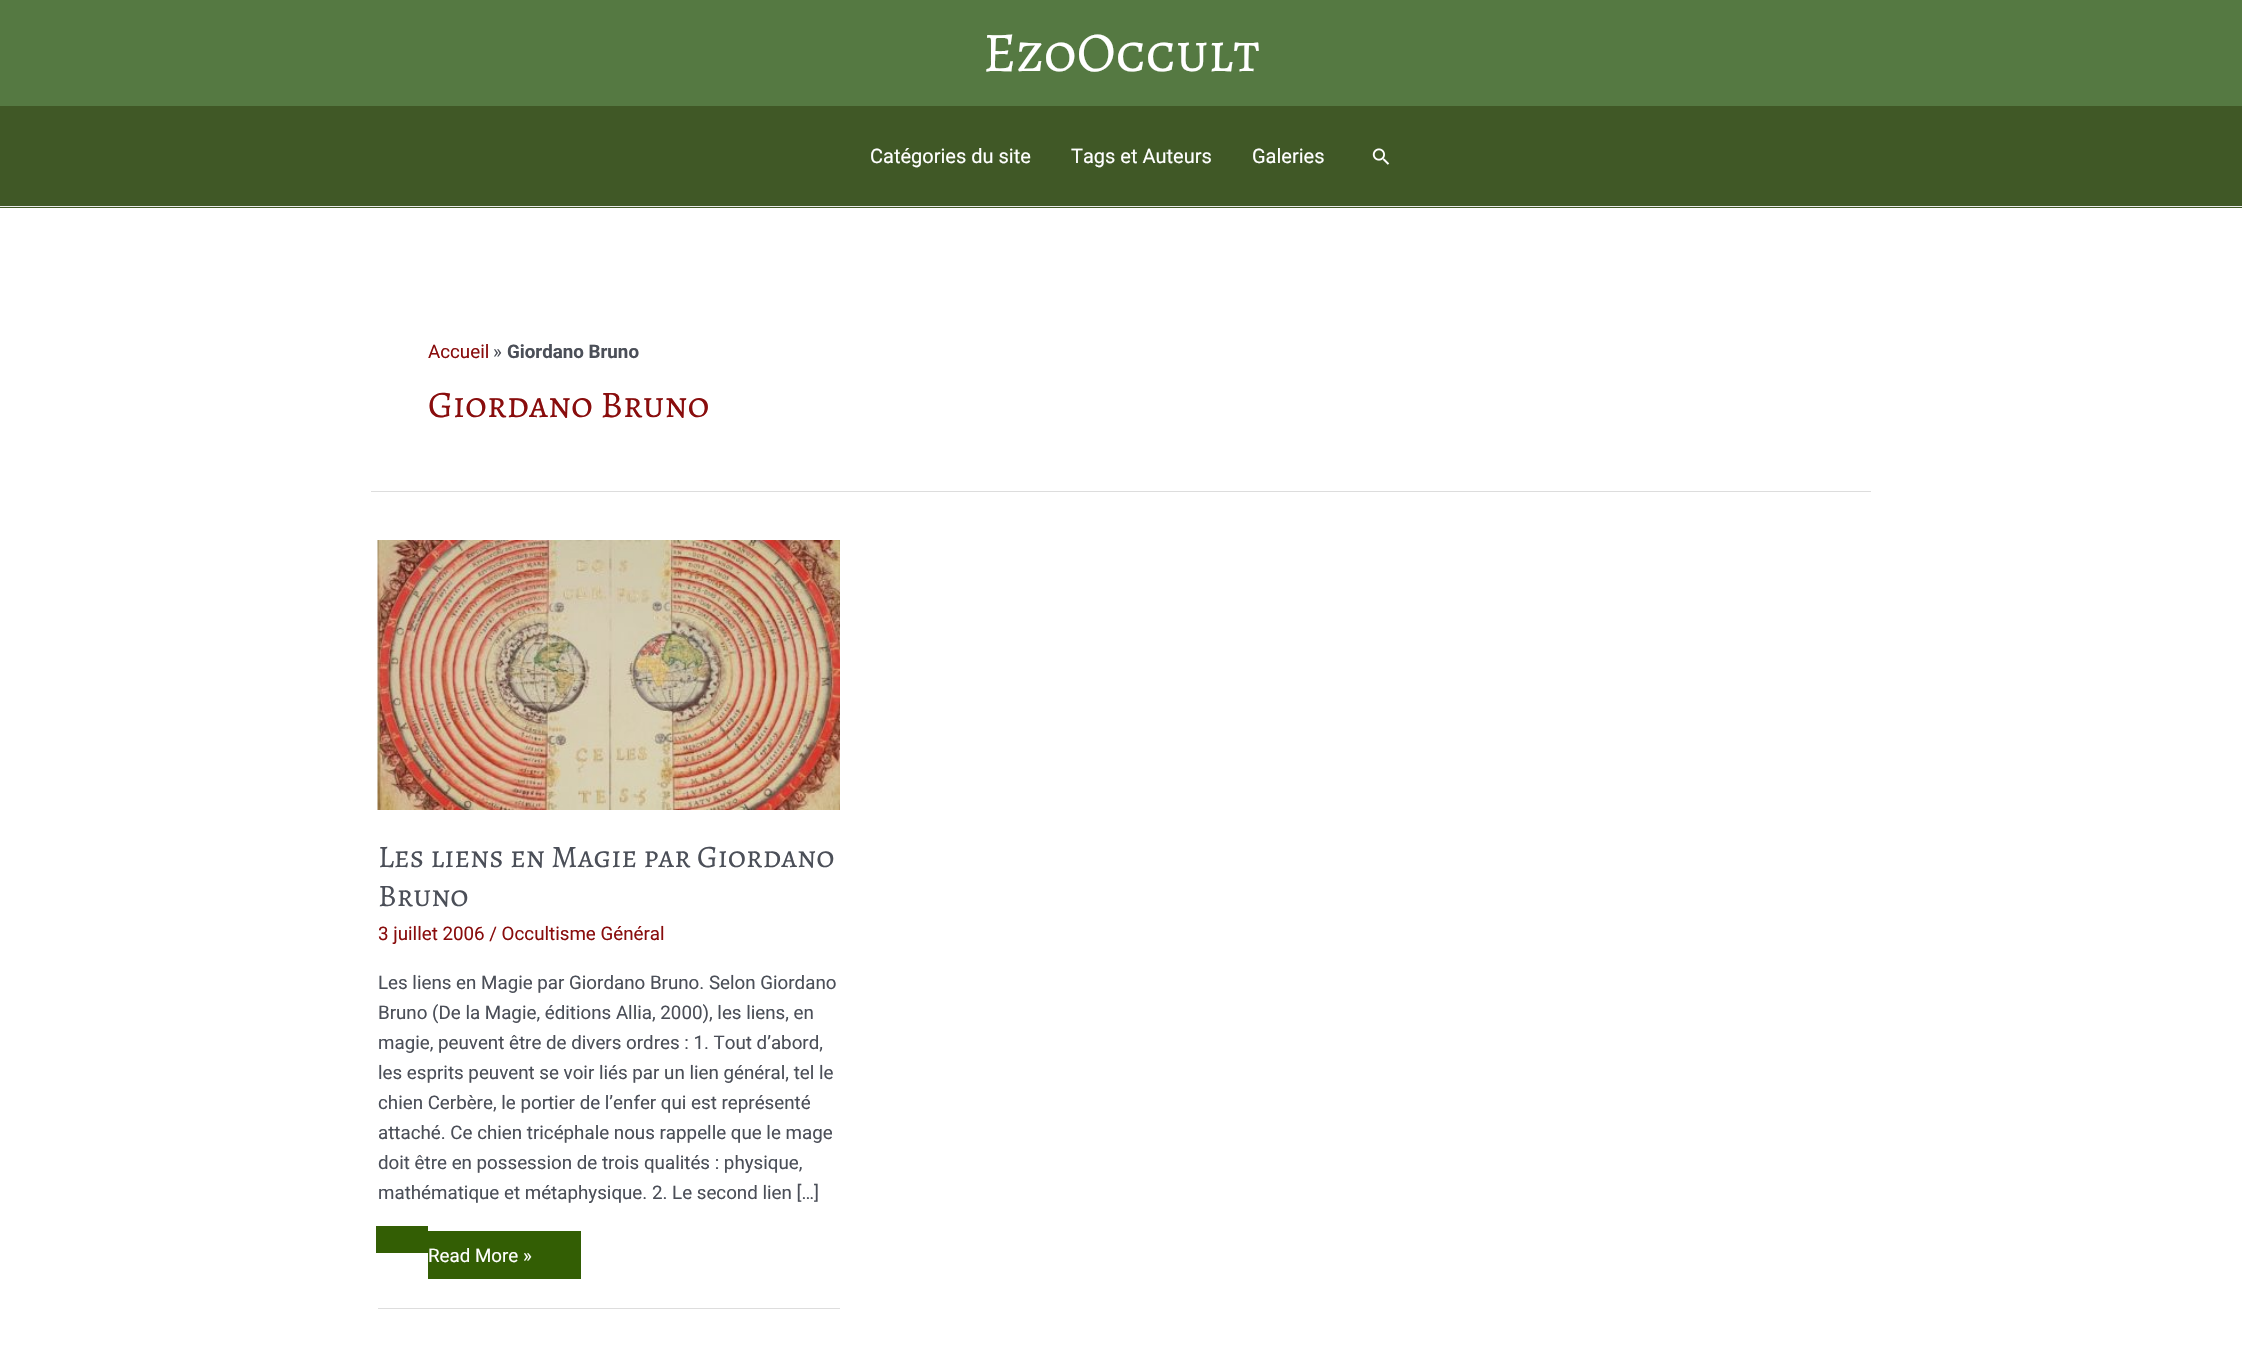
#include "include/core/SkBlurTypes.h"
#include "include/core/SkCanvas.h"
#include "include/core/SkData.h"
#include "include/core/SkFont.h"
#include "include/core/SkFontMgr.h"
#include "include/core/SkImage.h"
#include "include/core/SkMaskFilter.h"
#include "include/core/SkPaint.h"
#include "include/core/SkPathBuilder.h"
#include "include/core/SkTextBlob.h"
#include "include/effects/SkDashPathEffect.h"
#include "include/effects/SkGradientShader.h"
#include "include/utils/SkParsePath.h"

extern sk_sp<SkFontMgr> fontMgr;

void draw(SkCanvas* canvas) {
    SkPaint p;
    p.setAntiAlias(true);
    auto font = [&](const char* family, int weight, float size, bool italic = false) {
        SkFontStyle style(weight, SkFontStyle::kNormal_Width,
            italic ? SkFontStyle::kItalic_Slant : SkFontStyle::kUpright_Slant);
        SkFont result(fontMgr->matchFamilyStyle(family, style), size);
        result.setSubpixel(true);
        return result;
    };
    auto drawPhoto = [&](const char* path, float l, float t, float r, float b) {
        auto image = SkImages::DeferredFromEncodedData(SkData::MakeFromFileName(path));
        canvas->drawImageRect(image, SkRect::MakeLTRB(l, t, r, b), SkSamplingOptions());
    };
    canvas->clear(0xFFFFFFFF);
    p.setColor(0xFF557942);
    canvas->drawRect(SkRect::MakeLTRB(0, 0, 2242, 106), p);
    auto font1 = font("Alegreya SC", 400, 56.25f);
    p.setColor(0xFFFFFFFF);
    canvas->drawString("EzoOccult", 983, 71, font1, p);
    p.setColor(0xFF405826);
    canvas->drawRect(SkRect::MakeLTRB(0, 106, 2242, 208), p);
    p.setColor(0xFFEAEAEA);
    canvas->drawRect(SkRect::MakeLTRB(0, 206, 2242, 207), p);
    auto font2 = font("Roboto", 400, 20);
    p.setColor(0xFFFFFFFF);
    {
        const struct { const char* s; float x, y; } items[] = {
            {"Catégories du site", 870, 163},
            {"Tags et Auteurs", 1071, 163},
            {"Galeries", 1252, 163},
        };
        for (auto [s, x, y] : items) {
            canvas->drawString(s, x, y, font2, p);
        }
    }
    drawPhoto("media/1.png", 1372, 148, 1390, 165);
    p.setColor(0xFFDDDDDD);
    canvas->drawRect(SkRect::MakeLTRB(371, 491, 1871, 492), p);
    auto font3 = font("Roboto", 400, 18.75f);
    p.setColor(0xFF890D0D);
    canvas->drawString("Accueil", 428, 358, font3, p);
    p.setColor(0xFF4B4F58);
    canvas->drawString("»", 493, 358, font3, p);
    auto font4 = font("Roboto", 700, 18.75f);
    canvas->drawString("Giordano Bruno", 507, 358, font4, p);
    auto font5 = font("Alegreya SC", 400, 37.5f);
    p.setColor(0xFF890D0D);
    canvas->drawString("Giordano Bruno", 428, 417, font5, p);
    p.setColor(0xFFDDDDDD);
    canvas->drawRect(SkRect::MakeLTRB(378, 1308, 840, 1309), p);
    drawPhoto("media/2.png", 377, 540, 840, 810);
    auto font6 = font("Alegreya SC", 400, 31.25f);
    p.setColor(0xFF4B4F58);
    canvas->drawString("Les liens en Magie par Giordano", 378, 867, font6, p);
    canvas->drawString("Bruno", 378, 906, font6, p);
    p.setColor(0xFF890D0D);
    canvas->drawString("3 juillet 2006 / Occultisme Général", 378, 940, font3, p);
    p.setColor(0xFF4B4F58);
    {
        const struct { const char* s; float x, y; } items[] = {
            {"Les liens en Magie par Giordano Bruno. Selon Giordano", 378, 989},
            {"Bruno (De la Magie, éditions Allia, 2000), les liens, en", 378, 1019},
            {"magie, peuvent être de divers ordres : 1. Tout d’abord,", 378, 1049},
            {"les esprits peuvent se voir liés par un lien général, tel le", 378, 1079},
            {"chien Cerbère, le portier de l’enfer qui est représenté", 378, 1109},
            {"attaché. Ce chien tricéphale nous rappelle que le mage", 378, 1139},
            {"doit être en possession de trois qualités : physique,", 378, 1169},
            {"mathématique et métaphysique. 2. Le second lien […]", 378, 1199},
        };
        for (auto [s, x, y] : items) {
            canvas->drawString(s, x, y, font3, p);
        }
    }
    p.setColor(0xFF335E04);
    canvas->drawRect(SkRect::MakeLTRB(428, 1231, 581, 1279), p);
    p.setColor(0xFFFFFFFF);
    canvas->drawString("Read More »", 428, 1262, font3, p);
    p.setColor(0xFF335E04);
    canvas->drawRect(SkRect::MakeLTRB(376, 1226, 428, 1253), p);
}
